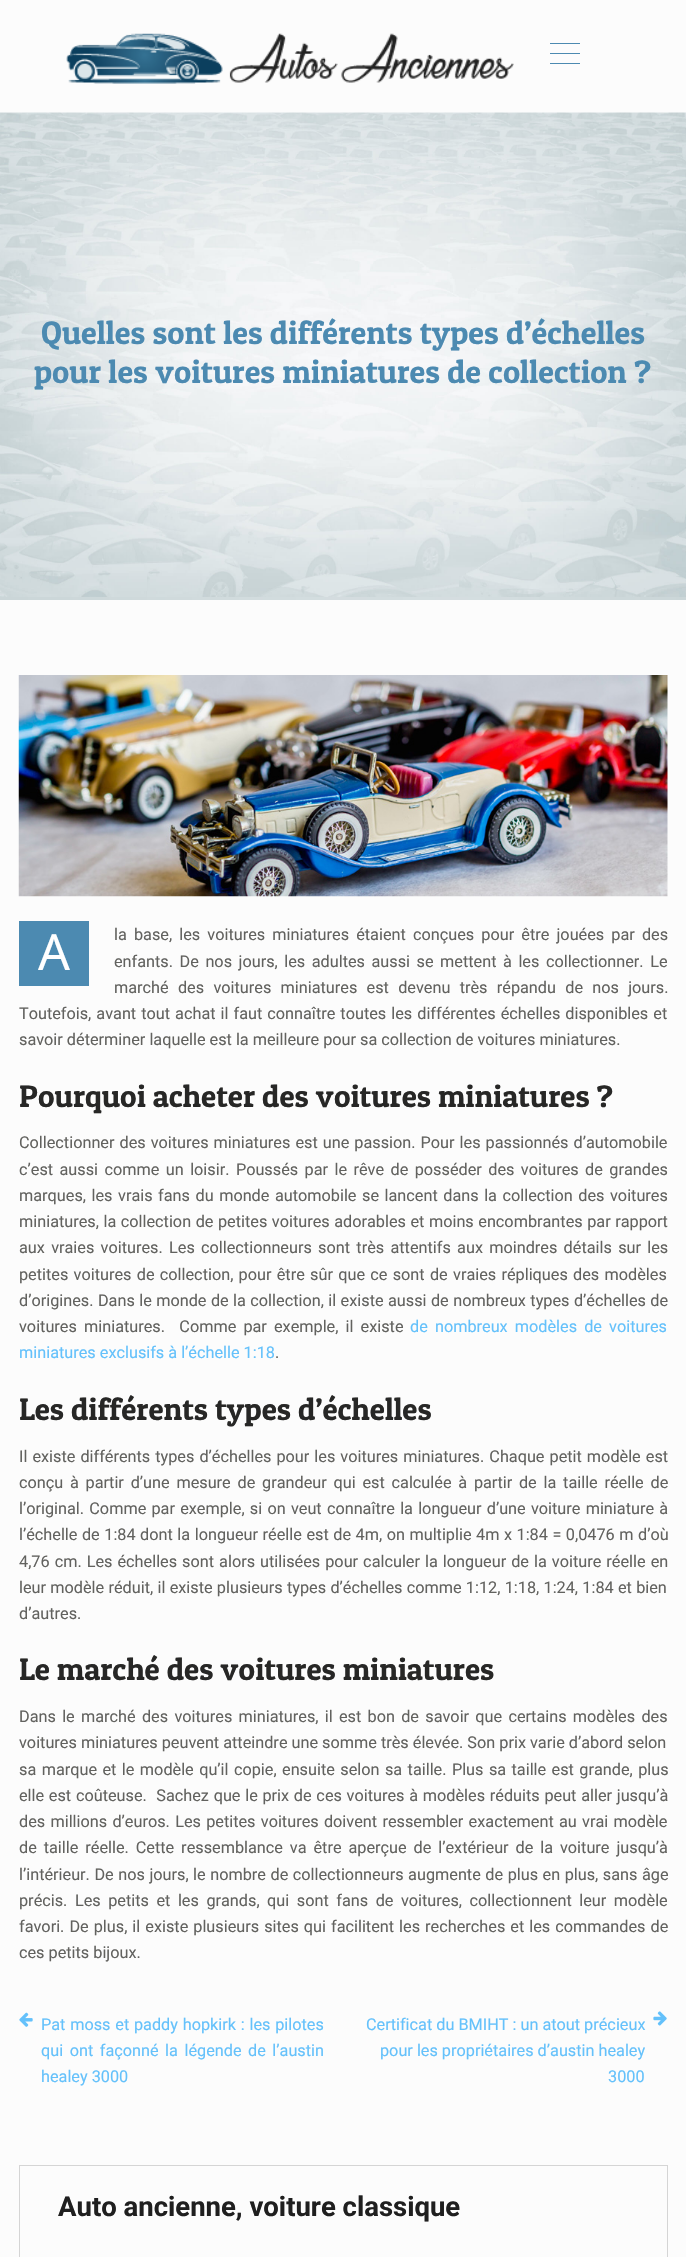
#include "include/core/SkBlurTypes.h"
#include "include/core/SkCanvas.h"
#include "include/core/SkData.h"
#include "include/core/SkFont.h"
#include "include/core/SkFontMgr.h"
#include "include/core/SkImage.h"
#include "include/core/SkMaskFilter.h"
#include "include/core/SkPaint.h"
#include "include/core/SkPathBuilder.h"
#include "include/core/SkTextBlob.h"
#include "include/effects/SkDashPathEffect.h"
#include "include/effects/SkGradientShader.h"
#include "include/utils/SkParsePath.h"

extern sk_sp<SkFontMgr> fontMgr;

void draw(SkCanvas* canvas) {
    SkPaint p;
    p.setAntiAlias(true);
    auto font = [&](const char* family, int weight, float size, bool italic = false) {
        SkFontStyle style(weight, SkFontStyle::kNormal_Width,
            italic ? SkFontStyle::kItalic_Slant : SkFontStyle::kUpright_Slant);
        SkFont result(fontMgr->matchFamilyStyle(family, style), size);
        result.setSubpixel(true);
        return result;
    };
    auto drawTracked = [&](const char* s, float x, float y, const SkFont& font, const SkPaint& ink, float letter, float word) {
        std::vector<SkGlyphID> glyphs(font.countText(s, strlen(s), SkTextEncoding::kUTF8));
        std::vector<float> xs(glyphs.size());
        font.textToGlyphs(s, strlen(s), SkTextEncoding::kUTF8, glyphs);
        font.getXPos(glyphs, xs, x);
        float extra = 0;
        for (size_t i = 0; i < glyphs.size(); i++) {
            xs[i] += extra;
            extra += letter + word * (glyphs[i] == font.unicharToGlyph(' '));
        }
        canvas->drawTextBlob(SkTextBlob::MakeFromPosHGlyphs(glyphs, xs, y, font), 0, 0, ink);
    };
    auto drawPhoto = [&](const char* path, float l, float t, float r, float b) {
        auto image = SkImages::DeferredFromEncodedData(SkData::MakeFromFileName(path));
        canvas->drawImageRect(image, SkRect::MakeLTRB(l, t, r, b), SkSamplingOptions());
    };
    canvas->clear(0xFFFCFCFC);
    drawPhoto("media/1.png", 66, 33, 514, 84);
    {
        const struct { float l, t, r, b; SkColor color; } items[] = {
            {550, 43, 580, 44, 0xFF4C8AB1},
            {550, 53, 580, 54, 0xFF4C8AB1},
            {550, 63, 580, 64, 0xFF4C8AB1},
        };
        for (auto [l, t, r, b, color] : items) {
            p.setColor(color);
            canvas->drawRect(SkRect::MakeLTRB(l, t, r, b), p);
        }
    }
    drawPhoto("media/2.png", 0, 112, 686, 600);
    auto font1 = font("Patua One", 400, 32.5f);
    canvas->drawString("Quelles sont les différents types d’échelles", 41, 344, font1, p);
    canvas->drawString("pour les voitures miniatures de collection ?", 34, 383, font1, p);
    drawPhoto("media/3.png", 18, 675, 668, 897);
    canvas->drawRect(SkRect::MakeLTRB(19, 921, 89, 986), p);
    auto font2 = font("Noto Sans", 400, 50);
    p.setColor(0xFFFFFFFF);
    canvas->drawString("A", 38, 970, font2, p);
    auto font3 = font("Roboto", 400, 16.25f);
    p.setColor(0xFF62625F);
    drawTracked("la base, les voitures miniatures étaient conçues pour être jouées par des", 114, 940, font3, p, 0, 3.1f);
    drawTracked("enfants. De nos jours, les adultes aussi se mettent à les collectionner. Le", 114, 967, font3, p, 0, 2.5f);
    drawTracked("marché des voitures miniatures est devenu très répandu de nos jours.", 114, 993, font3, p, 0, 5.25f);
    drawTracked("Toutefois, avant tout achat il faut connaître toutes les différentes échelles disponibles et", 19, 1019, font3, p, 0, 1);
    canvas->drawString("savoir déterminer laquelle est la meilleure pour sa collection de voitures miniatures.", 19, 1045, font3, p);
    auto font4 = font("Patua One", 400, 31.25f);
    p.setColor(0xFF272726);
    canvas->drawString("Pourquoi acheter des voitures miniatures ?", 19, 1107, font4, p);
    p.setColor(0xFF62625F);
    drawTracked("Collectionner des voitures miniatures est une passion. Pour les passionnés d’automobile", 19, 1148, font3, p, 0, 1);
    drawTracked("c’est aussi comme un loisir. Poussés par le rêve de posséder des voitures de grandes", 19, 1175, font3, p, 0, 2.4f);
    drawTracked("marques, les vrais fans du monde automobile se lancent dans la collection des voitures", 19, 1201, font3, p, 0, 1.5f);
    drawTracked("miniatures, la collection de petites voitures adorables et moins encombrantes par rapport", 19, 1227, font3, p, 0, 0.5f);
    drawTracked("aux vraies voitures. Les collectionneurs sont très attentifs aux moindres détails sur les", 19, 1253, font3, p, 0, 2.25f);
    drawTracked("petites voitures de collection, pour être sûr que ce sont de vraies répliques des modèles", 19, 1280, font3, p, 0, 1.25f);
    drawTracked("d’origines. Dans le monde de la collection, il existe aussi de nombreux types d’échelles de", 19, 1306, font3, p, 0, 0.4f);
    drawTracked("voitures miniatures.  Comme par exemple, il existe", 19, 1332, font3, p, 0, 3.1f);
    p.setColor(0xFF64C1FB);
    drawTracked("de nombreux modèles de voitures", 410, 1332, font3, p, 0, 3.1f);
    canvas->drawString("miniatures exclusifs à l’échelle 1:18", 19, 1358, font3, p);
    p.setColor(0xFF62625F);
    canvas->drawString(".", 275, 1358, font3, p);
    p.setColor(0xFF272726);
    canvas->drawString("Les différents types d’échelles", 19, 1420, font4, p);
    p.setColor(0xFF62625F);
    drawTracked("Il existe différents types d’échelles pour les voitures miniatures. Chaque petit modèle est", 19, 1462, font3, p, 0, 1);
    drawTracked("conçu à partir d’une mesure de grandeur qui est calculée à partir de la taille réelle de", 19, 1488, font3, p, 0, 2.75f);
    drawTracked("l’original. Comme par exemple, si on veut connaître la longueur d’une voiture miniature à", 19, 1514, font3, p, 0, 1.2f);
    drawTracked("l’échelle de 1:84 dont la longueur réelle est de 4m, on multiplie 4m x 1:84 = 0,0476 m d’où", 19, 1540, font3, p, 0, 0.5f);
    drawTracked("4,76 cm. Les échelles sont alors utilisées pour calculer la longueur de la voiture réelle en", 19, 1567, font3, p, 0, 1);
    drawTracked("leur modèle réduit, il existe plusieurs types d’échelles comme 1:12, 1:18, 1:24, 1:84 et bien", 19, 1593, font3, p, 0, 0.25f);
    canvas->drawString("d’autres.", 19, 1619, font3, p);
    p.setColor(0xFF272726);
    canvas->drawString("Le marché des voitures miniatures", 19, 1680, font4, p);
    p.setColor(0xFF62625F);
    drawTracked("Dans le marché des voitures miniatures, il est bon de savoir que certains modèles des", 19, 1722, font3, p, 0, 2.25f);
    canvas->drawString("voitures miniatures peuvent atteindre une somme très élevée. Son prix varie d’abord selon", 19, 1748, font3, p);
    drawTracked("sa marque et le modèle qu’il copie, ensuite selon sa taille. Plus sa taille est grande, plus", 19, 1775, font3, p, 0, 1.4f);
    drawTracked("elle est coûteuse.  Sachez que le prix de ces voitures à modèles réduits peut aller jusqu’à", 19, 1801, font3, p, 0, 0.7f);
    drawTracked("des millions d’euros. Les petites voitures doivent ressembler exactement au vrai modèle", 19, 1827, font3, p, 0, 1.25f);
    drawTracked("de taille réelle. Cette ressemblance va être aperçue de l’extérieur de la voiture jusqu’à", 19, 1853, font3, p, 0, 2.9f);
    drawTracked("l’intérieur. De nos jours, le nombre de collectionneurs augmente de plus en plus, sans âge", 19, 1880, font3, p, 0, 0.5f);
    drawTracked("précis. Les petits et les grands, qui sont fans de voitures, collectionnent leur modèle", 19, 1906, font3, p, 0, 3.5f);
    drawTracked("favori. De plus, il existe plusieurs sites qui facilitent les recherches et les commandes de", 19, 1932, font3, p, 0, 1);
    canvas->drawString("ces petits bijoux.", 19, 1958, font3, p);
    drawPhoto("media/4.png", 19, 2012, 33, 2027);
    p.setColor(0xFF64C1FB);
    drawTracked("Pat moss et paddy hopkirk : les pilotes", 41, 2030, font3, p, 0, 0.75f);
    drawTracked("qui ont façonné la légende de l’austin", 41, 2056, font3, p, 0, 2.5f);
    canvas->drawString("healey 3000", 41, 2082, font3, p);
    canvas->drawString("Certificat du BMIHT : un atout précieux", 366, 2030, font3, p);
    drawPhoto("media/5.png", 653, 2011, 667, 2026);
    canvas->drawString("pour les propriétaires d’austin healey", 380, 2056, font3, p);
    canvas->drawString("3000", 608, 2082, font3, p);
    p.setStyle(SkPaint::kStroke_Style);
    p.setStrokeWidth(1);
    p.setColor(0xFFD5D5D5);
    canvas->drawRect(SkRect::MakeLTRB(19.5f, 2165.5f, 667.5f, 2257.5f), p);
    auto font5 = font("Roboto", 700, 27.5f);
    p.setStyle(SkPaint::kFill_Style);
    p.setColor(0xFF1F1F1F);
    canvas->drawString("Auto ancienne, voiture classique", 58, 2216, font5, p);
}
